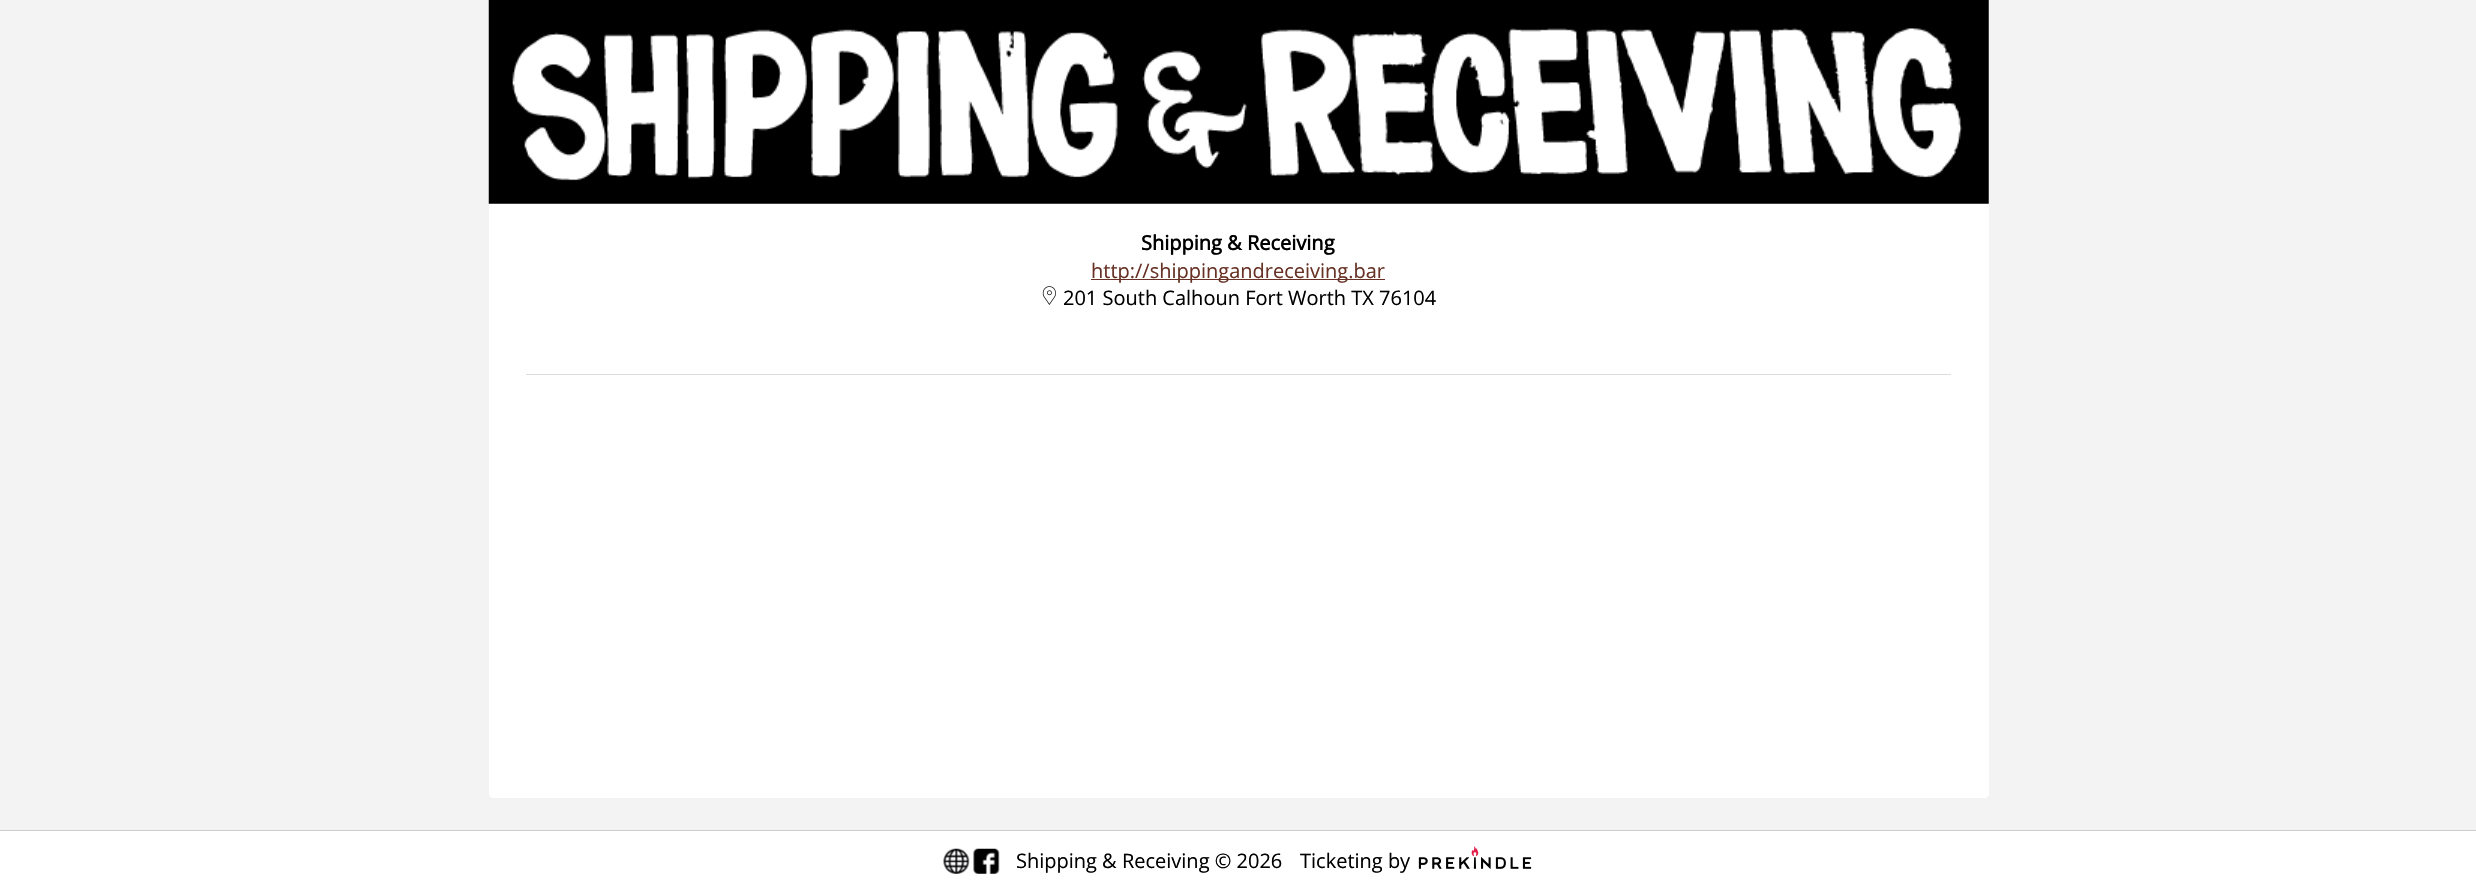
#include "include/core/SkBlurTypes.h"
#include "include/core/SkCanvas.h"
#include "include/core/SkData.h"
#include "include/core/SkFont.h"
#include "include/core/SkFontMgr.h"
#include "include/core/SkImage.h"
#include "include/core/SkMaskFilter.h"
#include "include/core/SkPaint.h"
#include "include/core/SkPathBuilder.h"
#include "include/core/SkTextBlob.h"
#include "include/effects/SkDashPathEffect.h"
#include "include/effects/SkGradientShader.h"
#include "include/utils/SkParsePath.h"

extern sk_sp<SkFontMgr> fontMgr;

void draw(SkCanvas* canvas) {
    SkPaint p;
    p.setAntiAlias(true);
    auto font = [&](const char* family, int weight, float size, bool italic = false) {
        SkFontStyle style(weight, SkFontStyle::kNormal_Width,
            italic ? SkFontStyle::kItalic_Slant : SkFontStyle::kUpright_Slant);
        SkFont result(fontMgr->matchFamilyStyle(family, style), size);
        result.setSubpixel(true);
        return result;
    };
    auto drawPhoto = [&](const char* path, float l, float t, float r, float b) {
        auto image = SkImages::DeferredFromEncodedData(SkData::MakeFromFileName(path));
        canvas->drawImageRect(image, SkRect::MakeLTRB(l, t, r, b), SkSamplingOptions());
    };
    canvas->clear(0xFFF3F3F3);
    p.setColor(0xFFFFFFFF);
    canvas->drawPath(SkPathBuilder().moveTo(489, 0).lineTo(1989, 0).lineTo(1989, 794).cubicTo(1989, 796, 1987, 798, 1985, 798).lineTo(493, 798).cubicTo(491, 798, 489, 796, 489, 794).close().detach(), p);
    drawPhoto("media/1.png", 488, 0, 1989, 204);
    auto font1 = font("Open Sans", 700, 20);
    p.setColor(0xFF000000);
    canvas->drawString("Shipping & Receiving", 1141, 250, font1, p);
    p.setColor(0xFF673225);
    canvas->drawRect(SkRect::MakeLTRB(1091, 279, 1385, 280), p);
    auto font2 = font("Open Sans", 400, 20);
    canvas->drawString("http://shippingandreceiving.bar", 1091, 278, font2, p);
    drawPhoto("media/2.png", 1042, 286, 1056, 305);
    p.setColor(0xFF000000);
    canvas->drawString("201 South Calhoun Fort Worth TX 76104", 1063, 305, font2, p);
    {
        const struct { float l, t, r, b; SkColor color; } items[] = {
            {526, 374, 1951, 375, 0xFFDDDDDD},
            {0, 831, 2476, 886, 0xFFFFFFFF},
            {0, 830, 2476, 831, 0xFFCCCCCC},
        };
        for (auto [l, t, r, b, color] : items) {
            p.setColor(color);
            canvas->drawRect(SkRect::MakeLTRB(l, t, r, b), p);
        }
    }
    drawPhoto("media/3.png", 943, 848, 970, 874);
    drawPhoto("media/4.png", 973, 848, 1000, 874);
    p.setColor(0xFF000000);
    canvas->drawString("Shipping & Receiving © 2026", 1016, 868, font2, p);
    canvas->drawString("Ticketing by", 1300, 868, font2, p);
    drawPhoto("media/5.png", 1418, 846, 1532, 869);
}
